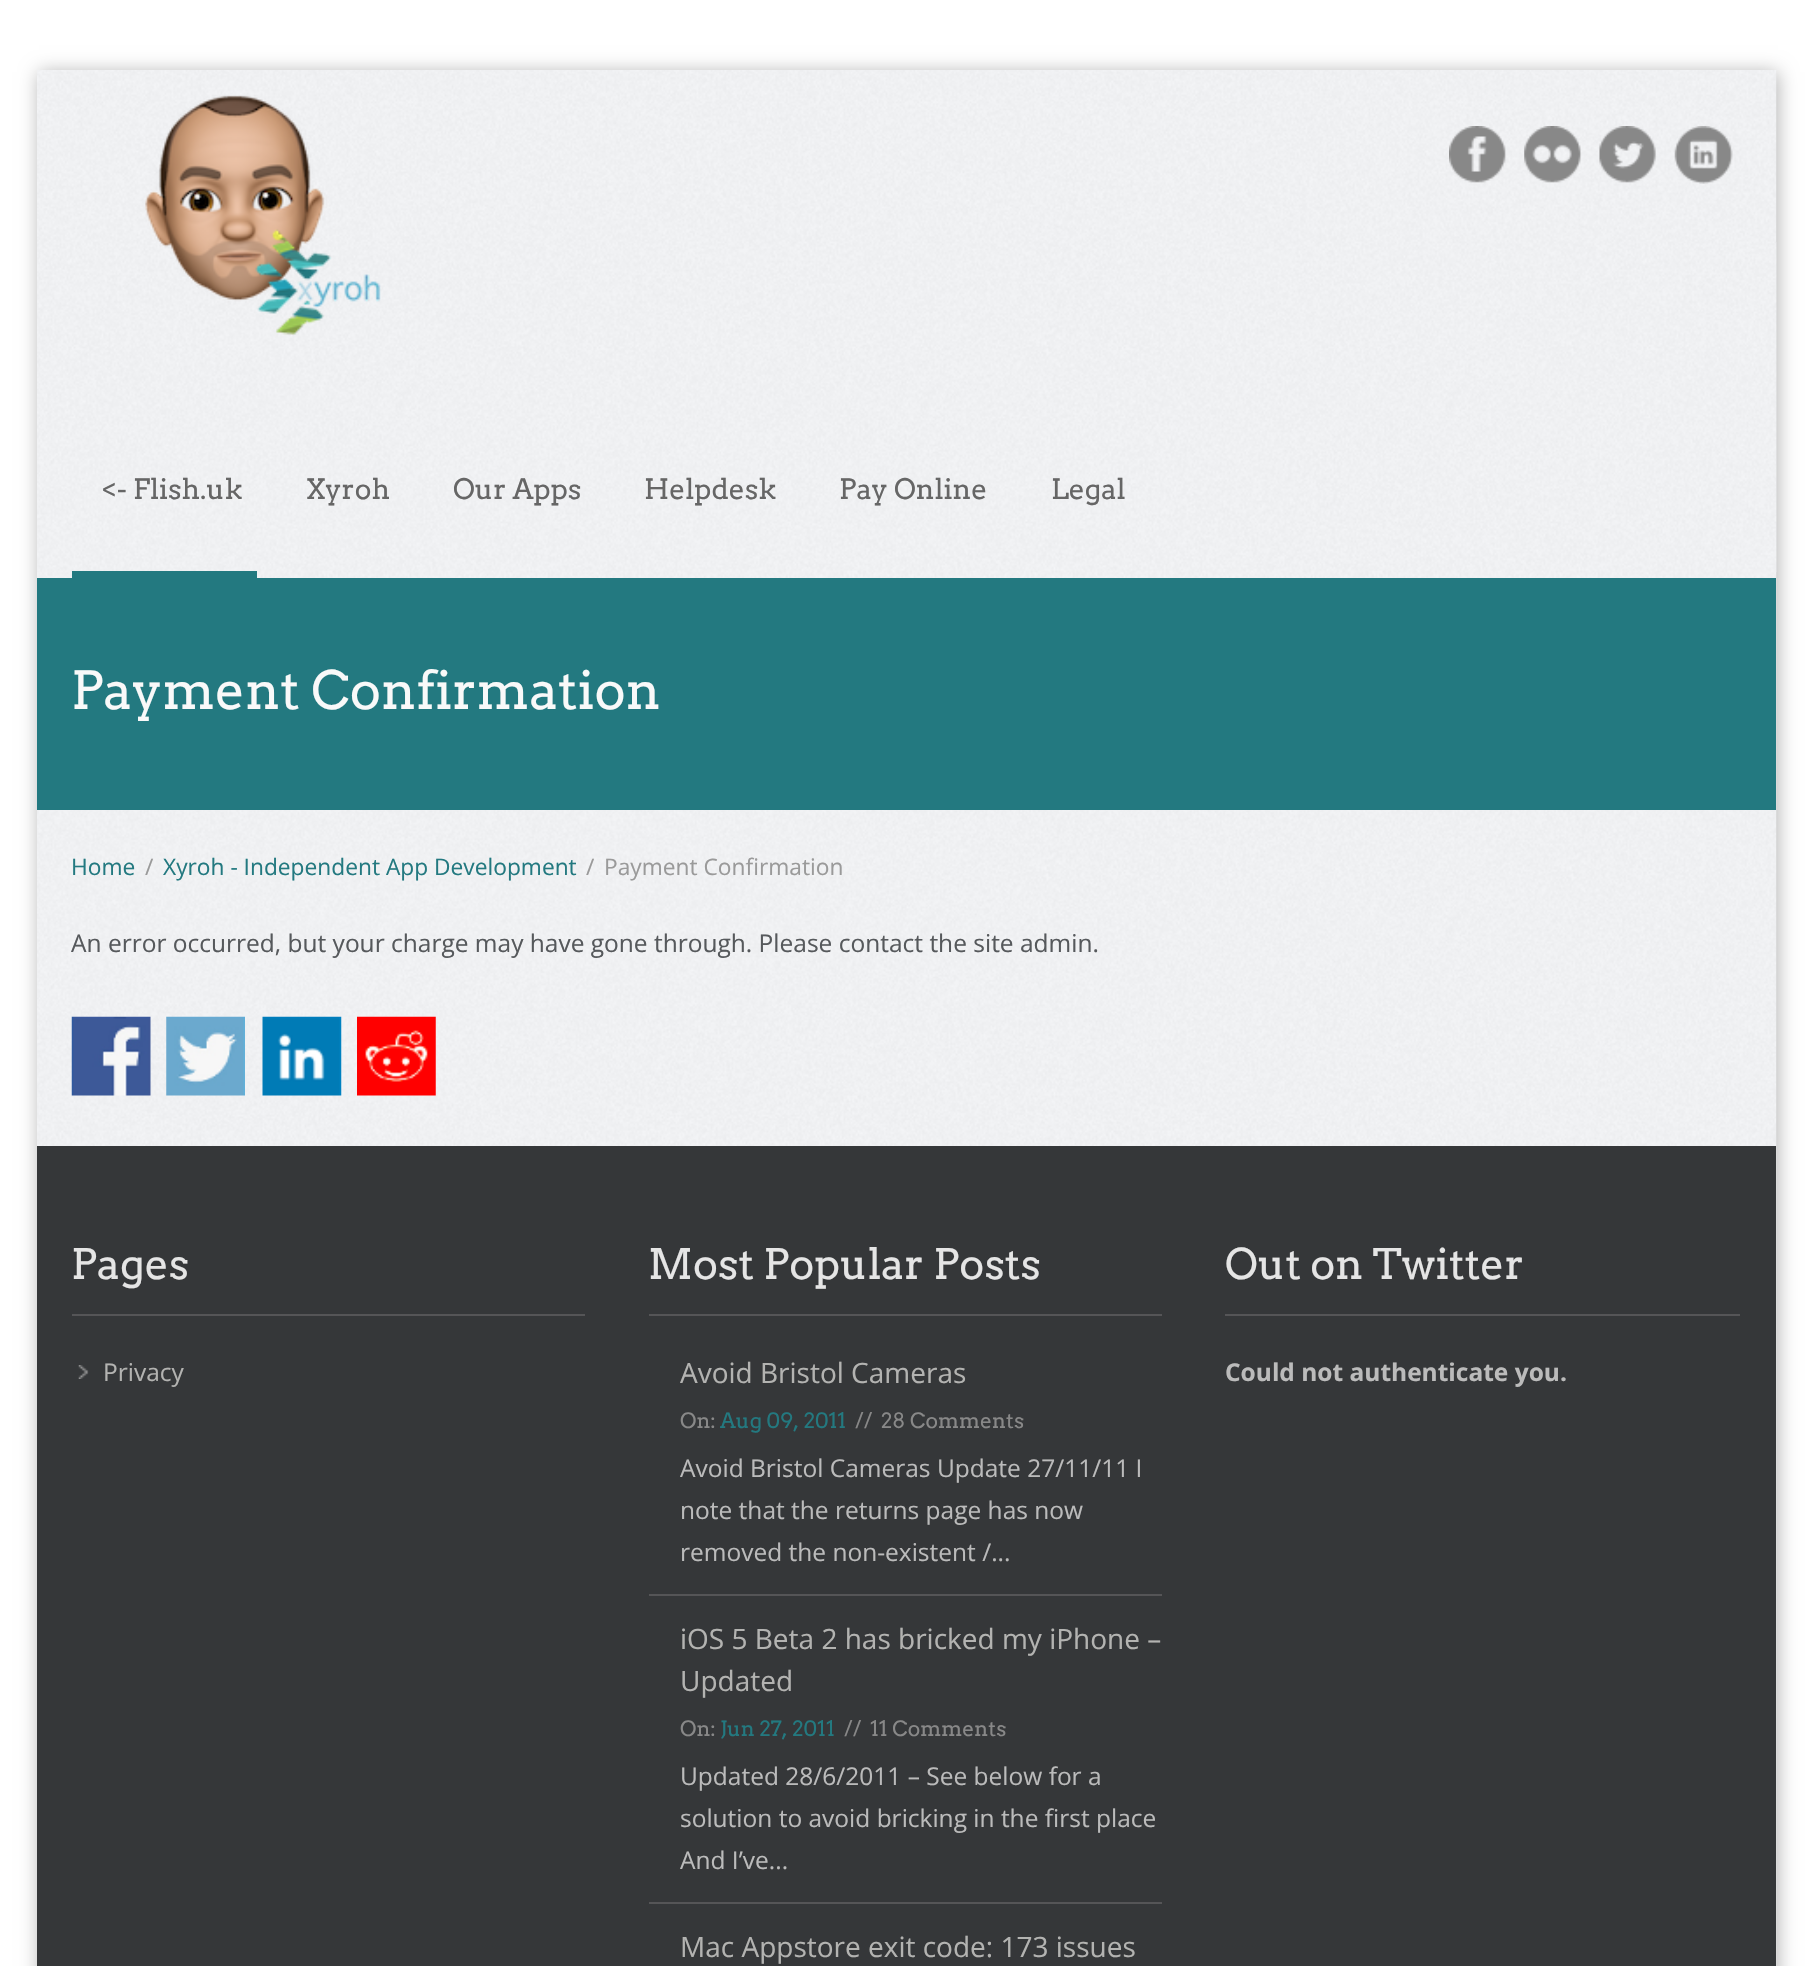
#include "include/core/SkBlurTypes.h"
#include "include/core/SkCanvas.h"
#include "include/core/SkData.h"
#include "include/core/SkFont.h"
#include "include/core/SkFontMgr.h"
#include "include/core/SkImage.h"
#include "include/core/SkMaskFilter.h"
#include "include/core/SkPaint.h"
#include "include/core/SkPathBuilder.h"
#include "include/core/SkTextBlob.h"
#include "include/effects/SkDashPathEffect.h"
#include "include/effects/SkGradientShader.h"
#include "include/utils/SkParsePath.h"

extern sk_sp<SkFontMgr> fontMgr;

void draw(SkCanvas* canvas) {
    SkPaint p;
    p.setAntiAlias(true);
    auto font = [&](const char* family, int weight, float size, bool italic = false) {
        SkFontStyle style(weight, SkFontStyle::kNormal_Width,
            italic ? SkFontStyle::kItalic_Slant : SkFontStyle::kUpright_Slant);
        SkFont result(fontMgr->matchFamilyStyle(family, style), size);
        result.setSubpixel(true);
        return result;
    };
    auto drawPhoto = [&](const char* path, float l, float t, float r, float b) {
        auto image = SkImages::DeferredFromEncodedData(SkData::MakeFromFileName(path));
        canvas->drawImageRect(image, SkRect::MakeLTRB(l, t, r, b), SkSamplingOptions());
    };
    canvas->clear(0xFFFFFFFF);
    p.setColor(0x4D000000);
    p.setMaskFilter(SkMaskFilter::MakeBlur(kNormal_SkBlurStyle, 9));
    canvas->drawRect(SkRect::MakeLTRB(39, 72, 1778, 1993), p);
    p.setMaskFilter(nullptr);
    drawPhoto("media/1.png", 37, 70, 1777, 1966);
    drawPhoto("media/2.png", 1776, 242, 1777, 572);
    drawPhoto("media/3.png", 145, 95, 381, 335);
    drawPhoto("media/4.png", 1449, 126, 1506, 183);
    drawPhoto("media/5.png", 1524, 126, 1581, 183);
    drawPhoto("media/6.png", 1599, 126, 1656, 183);
    drawPhoto("media/7.png", 1674, 126, 1733, 184);
    auto font1 = font("Arvo", 400, 28);
    p.setColor(0xFF666666);
    {
        const struct { const char* s; float x, y; } items[] = {
            {"<- Flish.uk", 103, 499},
            {"Xyroh", 305, 499},
            {"Our Apps", 453, 499},
            {"Helpdesk", 644, 499},
            {"Pay Online", 839, 499},
            {"Legal", 1051, 499},
        };
        for (auto [s, x, y] : items) {
            canvas->drawString(s, x, y, font1, p);
        }
    }
    p.setColor(0xFF237980);
    canvas->drawRect(SkRect::MakeLTRB(72, 571, 257, 578), p);
    canvas->drawRect(SkRect::MakeLTRB(37, 578, 1776, 810), p);
    auto font2 = font("Arvo", 400, 52.5f);
    p.setColor(0xFFF9F9F9);
    canvas->drawString("Payment Confirmation", 71, 709, font2, p);
    auto font3 = font("Open Sans", 400, 22.75f);
    p.setColor(0xFF237980);
    canvas->drawString("Home", 71, 875, font3, p);
    p.setColor(0xFF9A9A9A);
    canvas->drawString("/", 145, 875, font3, p);
    p.setColor(0xFF237980);
    canvas->drawString("Xyroh - Independent App Development", 163, 875, font3, p);
    p.setColor(0xFF9A9A9A);
    canvas->drawString("/", 586, 875, font3, p);
    canvas->drawString("Payment Confirmation", 604, 875, font3, p);
    auto font4 = font("Open Sans", 400, 24.5f);
    p.setColor(0xFF56595C);
    canvas->drawString("An error occurred, but your charge may have gone through. Please contact the site admin.", 71, 952, font4, p);
    drawPhoto("media/8.png", 71, 1016, 151, 1096);
    drawPhoto("media/9.png", 166, 1016, 245, 1096);
    drawPhoto("media/10.png", 262, 1016, 342, 1096);
    drawPhoto("media/11.png", 357, 1016, 436, 1096);
    p.setColor(0xFF353739);
    canvas->drawRect(SkRect::MakeLTRB(37, 1146, 1776, 1966), p);
    p.setColor(0xFF555557);
    canvas->drawRect(SkRect::MakeLTRB(72, 1314, 585, 1316), p);
    auto font5 = font("Arvo", 400, 42);
    p.setColor(0xFFE5E5E5);
    canvas->drawString("Pages", 71, 1279, font5, p);
    drawPhoto("media/12.png", 78, 1365, 89, 1379);
    p.setColor(0xFFB3B3B1);
    canvas->drawString("Privacy", 103, 1381, font4, p);
    p.setColor(0xFF555557);
    canvas->drawRect(SkRect::MakeLTRB(649, 1314, 1162, 1316), p);
    p.setColor(0xFFE5E5E5);
    canvas->drawString("Most Popular Posts", 648, 1279, font5, p);
    auto font6 = font("Open Sans", 400, 28);
    p.setColor(0xFFB3B3B1);
    canvas->drawString("Avoid Bristol Cameras", 680, 1383, font6, p);
    auto font7 = font("Arvo", 400, 21);
    p.setColor(0xFF888888);
    canvas->drawString("On:", 680, 1428, font7, p);
    p.setColor(0xFF237980);
    canvas->drawString("Aug 09, 2011", 720, 1428, font7, p);
    p.setColor(0xFF888888);
    canvas->drawString("//", 855, 1428, font7, p);
    canvas->drawString("28 Comments", 881, 1428, font7, p);
    p.setColor(0xFFBBBBBB);
    {
        const struct { const char* s; float x, y; } items[] = {
            {"Avoid Bristol Cameras Update 27/11/11 I", 680, 1477},
            {"note that the returns page has now", 680, 1519},
            {"removed the non-existent /...", 680, 1561},
        };
        for (auto [s, x, y] : items) {
            canvas->drawString(s, x, y, font4, p);
        }
    }
    p.setColor(0xFF555557);
    canvas->drawRect(SkRect::MakeLTRB(649, 1594, 1162, 1596), p);
    p.setColor(0xFFB3B3B1);
    canvas->drawString("iOS 5 Beta 2 has bricked my iPhone –", 680, 1649, font6, p);
    canvas->drawString("Updated", 680, 1691, font6, p);
    p.setColor(0xFF888888);
    canvas->drawString("On:", 680, 1736, font7, p);
    p.setColor(0xFF237980);
    canvas->drawString("Jun 27, 2011", 720, 1736, font7, p);
    p.setColor(0xFF888888);
    canvas->drawString("//", 844, 1736, font7, p);
    canvas->drawString("11 Comments", 870, 1736, font7, p);
    p.setColor(0xFFBBBBBB);
    {
        const struct { const char* s; float x, y; } items[] = {
            {"Updated 28/6/2011 – See below for a", 680, 1785},
            {"solution to avoid bricking in the first place", 680, 1827},
            {"And I’ve...", 680, 1869},
        };
        for (auto [s, x, y] : items) {
            canvas->drawString(s, x, y, font4, p);
        }
    }
    p.setColor(0xFF555557);
    canvas->drawRect(SkRect::MakeLTRB(649, 1902, 1162, 1904), p);
    p.setColor(0xFFB3B3B1);
    canvas->drawString("Mac Appstore exit code: 173 issues", 680, 1957, font6, p);
    p.setColor(0xFF555557);
    canvas->drawRect(SkRect::MakeLTRB(1225, 1314, 1740, 1316), p);
    p.setColor(0xFFE5E5E5);
    canvas->drawString("Out on Twitter", 1225, 1279, font5, p);
    auto font8 = font("Open Sans", 700, 24.5f);
    p.setColor(0xFFBBBBBB);
    canvas->drawString("Could not authenticate you.", 1225, 1381, font8, p);
}
